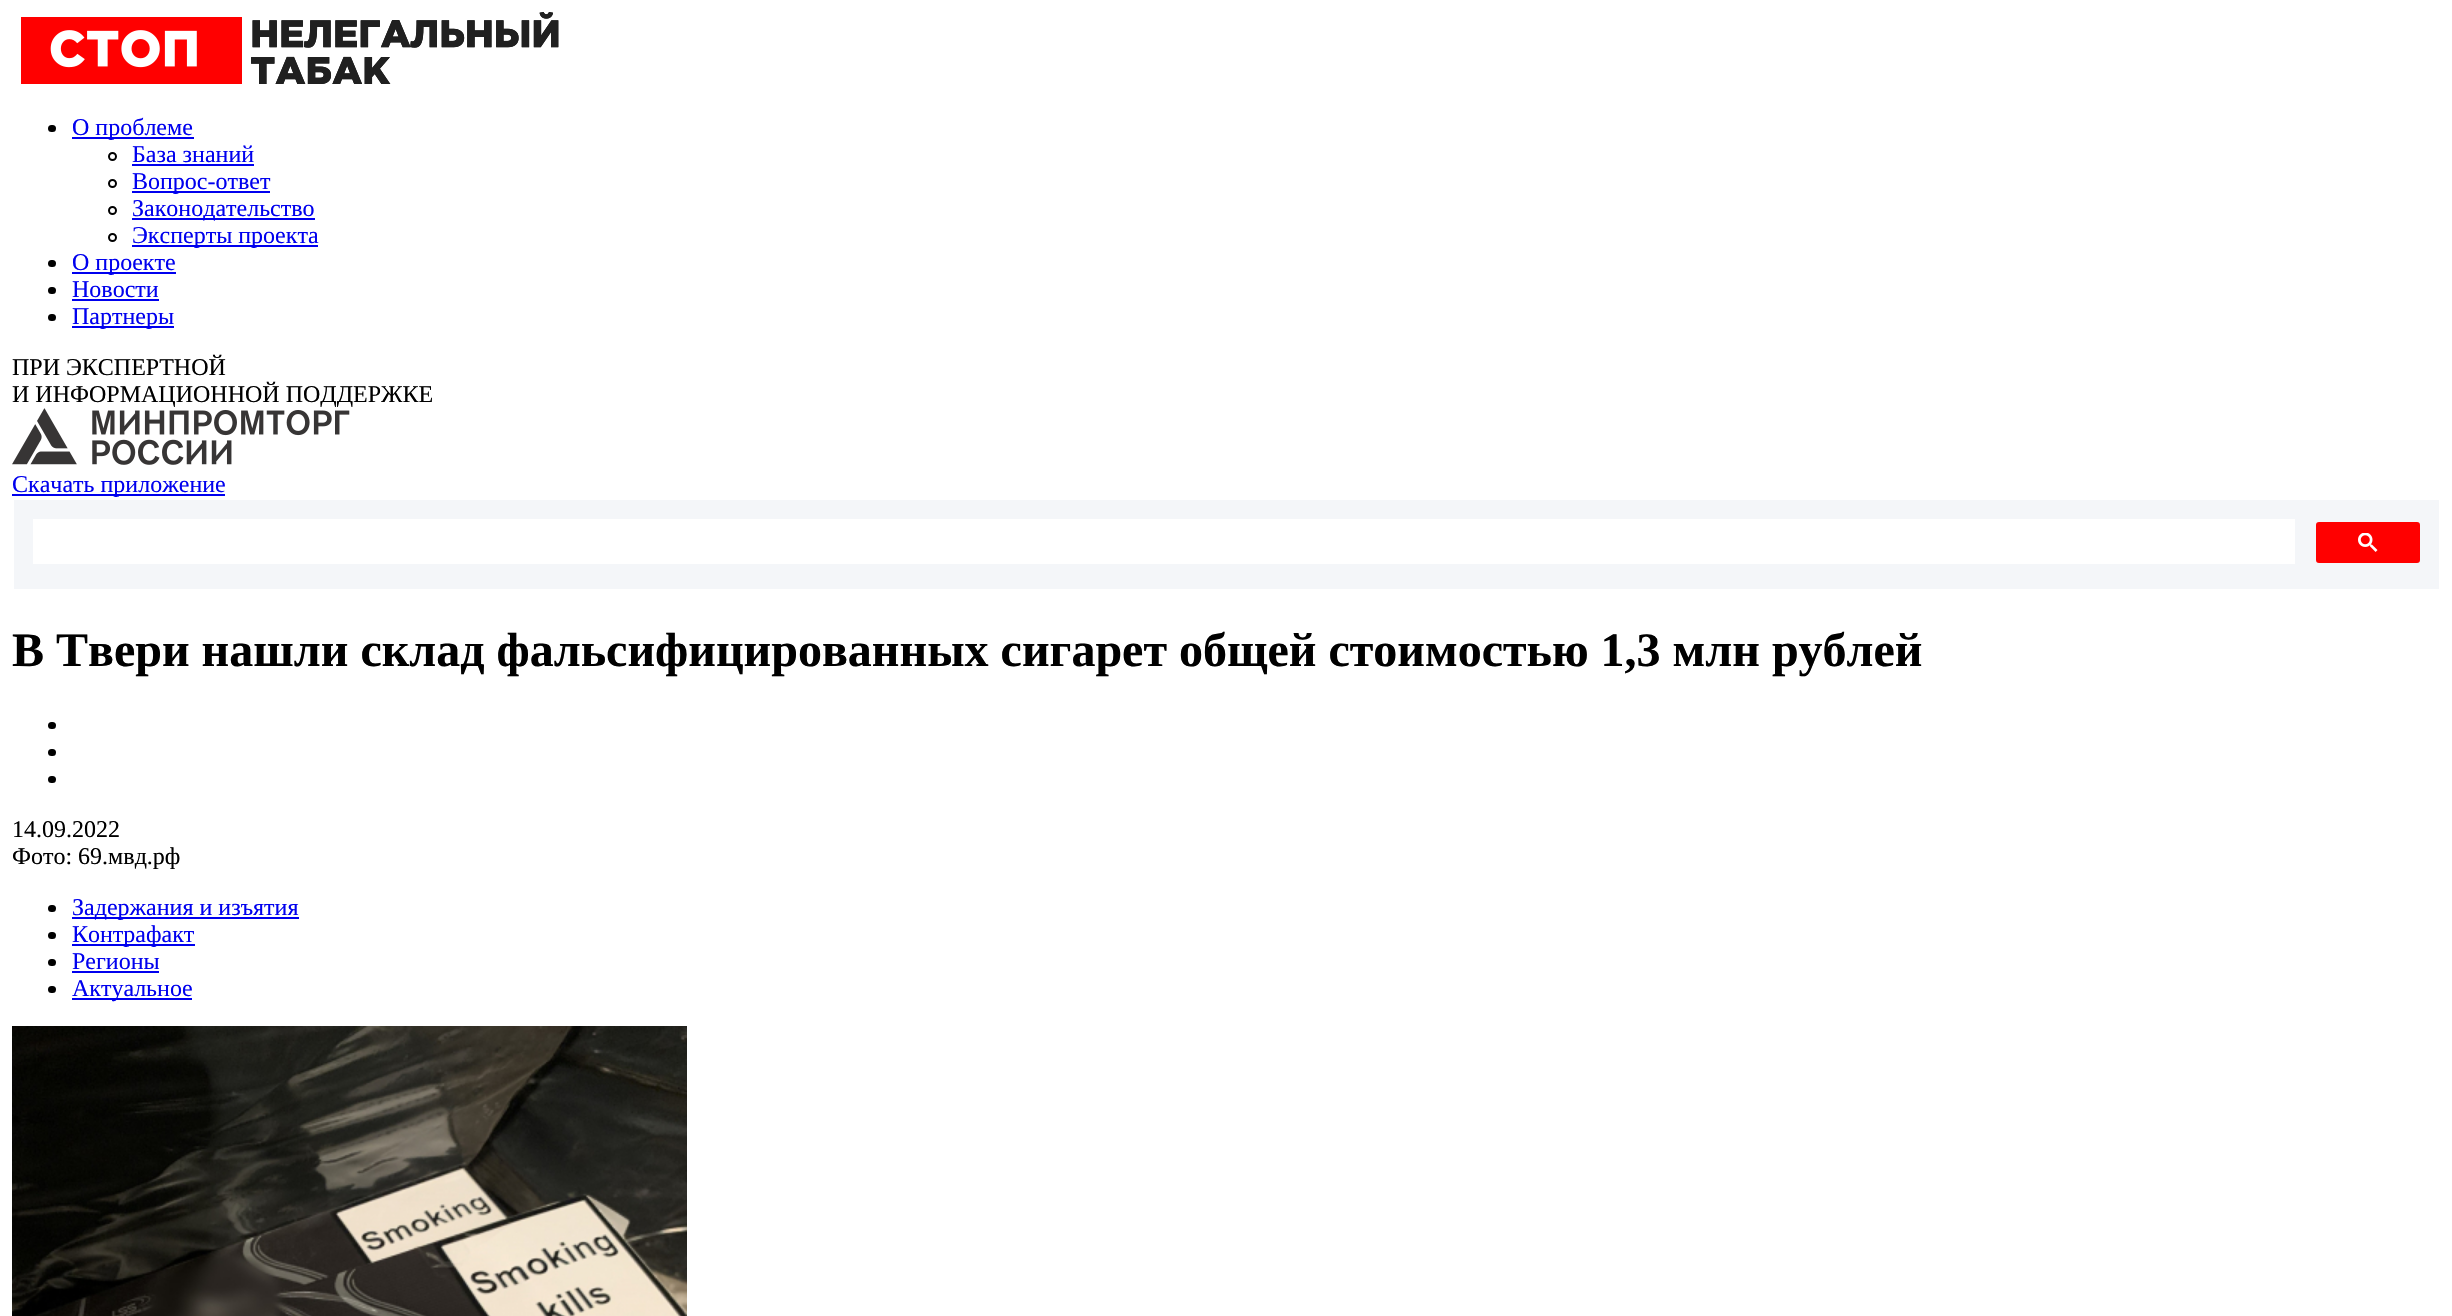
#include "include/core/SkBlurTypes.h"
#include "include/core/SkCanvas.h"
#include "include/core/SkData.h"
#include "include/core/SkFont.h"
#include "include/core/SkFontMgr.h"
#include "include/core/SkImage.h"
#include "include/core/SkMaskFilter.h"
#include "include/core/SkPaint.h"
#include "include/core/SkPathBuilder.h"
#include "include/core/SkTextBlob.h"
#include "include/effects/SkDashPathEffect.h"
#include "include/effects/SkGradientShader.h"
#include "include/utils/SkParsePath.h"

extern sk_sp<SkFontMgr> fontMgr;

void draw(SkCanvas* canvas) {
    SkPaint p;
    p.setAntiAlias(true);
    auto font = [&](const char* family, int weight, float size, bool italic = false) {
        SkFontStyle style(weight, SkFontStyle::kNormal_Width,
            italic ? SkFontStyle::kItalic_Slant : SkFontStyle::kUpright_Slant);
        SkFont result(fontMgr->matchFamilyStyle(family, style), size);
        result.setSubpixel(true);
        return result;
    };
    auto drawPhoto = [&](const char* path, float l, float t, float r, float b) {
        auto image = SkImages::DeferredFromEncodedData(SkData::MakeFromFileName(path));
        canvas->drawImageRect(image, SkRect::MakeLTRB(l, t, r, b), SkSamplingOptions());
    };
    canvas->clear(0xFFFFFFFF);
    drawPhoto("media/1.png", 21, 12, 559, 84);
    p.setColor(0xFF000000);
    canvas->drawRoundRect(SkRect::MakeLTRB(48, 125, 56, 132), 3.5f, 3.5f, p);
    p.setColor(0xFF0000EE);
    canvas->drawRect(SkRect::MakeLTRB(72, 137, 194, 139), p);
    auto font1 = font("Liberation Serif", 400, 24);
    canvas->drawString("О проблеме", 72, 135, font1, p);
    p.setStyle(SkPaint::kStroke_Style);
    p.setStrokeWidth(2);
    p.setColor(0xFF000000);
    canvas->drawCircle(112.5f, 156.5f, 3.5f, p);
    p.setStyle(SkPaint::kFill_Style);
    p.setColor(0xFF0000EE);
    canvas->drawString("База знаний", 132, 162, font1, p);
    canvas->drawRect(SkRect::MakeLTRB(132, 164, 254, 166), p);
    p.setStyle(SkPaint::kStroke_Style);
    p.setColor(0xFF000000);
    canvas->drawCircle(112.5f, 183.5f, 3.5f, p);
    p.setStyle(SkPaint::kFill_Style);
    p.setColor(0xFF0000EE);
    canvas->drawRect(SkRect::MakeLTRB(132, 191, 270, 193), p);
    canvas->drawString("Вопрос-ответ", 132, 189, font1, p);
    p.setStyle(SkPaint::kStroke_Style);
    p.setColor(0xFF000000);
    canvas->drawCircle(112.5f, 210.5f, 3.5f, p);
    p.setStyle(SkPaint::kFill_Style);
    p.setColor(0xFF0000EE);
    canvas->drawRect(SkRect::MakeLTRB(132, 218, 315, 220), p);
    canvas->drawString("Законодательство", 132, 216, font1, p);
    p.setStyle(SkPaint::kStroke_Style);
    p.setColor(0xFF000000);
    canvas->drawCircle(112.5f, 237.5f, 3.5f, p);
    p.setStyle(SkPaint::kFill_Style);
    p.setColor(0xFF0000EE);
    canvas->drawRect(SkRect::MakeLTRB(132, 245, 318, 247), p);
    canvas->drawString("Эксперты проекта", 132, 243, font1, p);
    p.setColor(0xFF000000);
    canvas->drawRoundRect(SkRect::MakeLTRB(48, 260, 56, 267), 3.5f, 3.5f, p);
    p.setColor(0xFF0000EE);
    canvas->drawRect(SkRect::MakeLTRB(72, 272, 176, 274), p);
    canvas->drawString("О проекте", 72, 270, font1, p);
    p.setColor(0xFF000000);
    canvas->drawRoundRect(SkRect::MakeLTRB(48, 287, 56, 294), 3.5f, 3.5f, p);
    p.setColor(0xFF0000EE);
    canvas->drawString("Новости", 72, 297, font1, p);
    canvas->drawRect(SkRect::MakeLTRB(72, 299, 159, 301), p);
    p.setColor(0xFF000000);
    canvas->drawRoundRect(SkRect::MakeLTRB(48, 314, 56, 321), 3.5f, 3.5f, p);
    p.setColor(0xFF0000EE);
    canvas->drawRect(SkRect::MakeLTRB(72, 326, 174, 328), p);
    canvas->drawString("Партнеры", 72, 324, font1, p);
    p.setColor(0xFF000000);
    canvas->drawString("ПРИ ЭКСПЕРТНОЙ", 12, 375, font1, p);
    canvas->drawString("И ИНФОРМАЦИОННОЙ ПОДДЕРЖКЕ", 12, 402, font1, p);
    drawPhoto("media/2.png", 12, 408, 350, 465);
    p.setColor(0xFF0000EE);
    canvas->drawRect(SkRect::MakeLTRB(12, 494, 225, 496), p);
    canvas->drawString("Скачать приложение", 12, 492, font1, p);
    p.setColor(0xFFF4F6F9);
    canvas->drawRect(SkRect::MakeLTRB(14, 500, 2439, 589), p);
    p.setColor(0xFFFFFFFF);
    canvas->drawRect(SkRect::MakeLTRB(33, 519, 2295, 564), p);
    p.setColor(0xFFFF0000);
    canvas->drawRoundRect(SkRect::MakeLTRB(2317, 523, 2419, 562), 2, 2, p);
    p.setStyle(SkPaint::kStroke_Style);
    canvas->drawRoundRect(SkRect::MakeLTRB(2317, 523, 2419, 562), 2, 2, p);
    drawPhoto("media/3.png", 2358, 533, 2378, 552);
    auto font2 = font("Liberation Serif", 700, 48);
    p.setStyle(SkPaint::kFill_Style);
    p.setColor(0xFF000000);
    canvas->drawString("В Твери нашли склад фальсифицированных сигарет общей стоимостью 1,3 млн рублей", 12, 666, font2, p);
    canvas->drawRoundRect(SkRect::MakeLTRB(48, 722, 56, 729), 3.5f, 3.5f, p);
    canvas->drawRoundRect(SkRect::MakeLTRB(48, 749, 56, 756), 3.5f, 3.5f, p);
    canvas->drawRoundRect(SkRect::MakeLTRB(48, 776, 56, 783), 3.5f, 3.5f, p);
    canvas->drawString("14.09.2022", 12, 837, font1, p);
    canvas->drawString("Фото: 69.мвд.рф", 12, 864, font1, p);
    canvas->drawRoundRect(SkRect::MakeLTRB(48, 905, 56, 912), 3.5f, 3.5f, p);
    p.setColor(0xFF0000EE);
    canvas->drawRect(SkRect::MakeLTRB(72, 917, 299, 919), p);
    canvas->drawString("Задержания и изъятия", 72, 915, font1, p);
    p.setColor(0xFF000000);
    canvas->drawRoundRect(SkRect::MakeLTRB(48, 932, 56, 939), 3.5f, 3.5f, p);
    p.setColor(0xFF0000EE);
    canvas->drawRect(SkRect::MakeLTRB(72, 944, 195, 946), p);
    canvas->drawString("Контрафакт", 72, 942, font1, p);
    p.setColor(0xFF000000);
    canvas->drawRoundRect(SkRect::MakeLTRB(48, 959, 56, 966), 3.5f, 3.5f, p);
    p.setColor(0xFF0000EE);
    canvas->drawString("Регионы", 72, 969, font1, p);
    canvas->drawRect(SkRect::MakeLTRB(72, 971, 159, 973), p);
    p.setColor(0xFF000000);
    canvas->drawRoundRect(SkRect::MakeLTRB(48, 986, 56, 993), 3.5f, 3.5f, p);
    p.setColor(0xFF0000EE);
    canvas->drawRect(SkRect::MakeLTRB(72, 998, 192, 1000), p);
    canvas->drawString("Актуальное", 72, 996, font1, p);
    drawPhoto("media/4.png", 12, 1026, 687, 1316);
}
